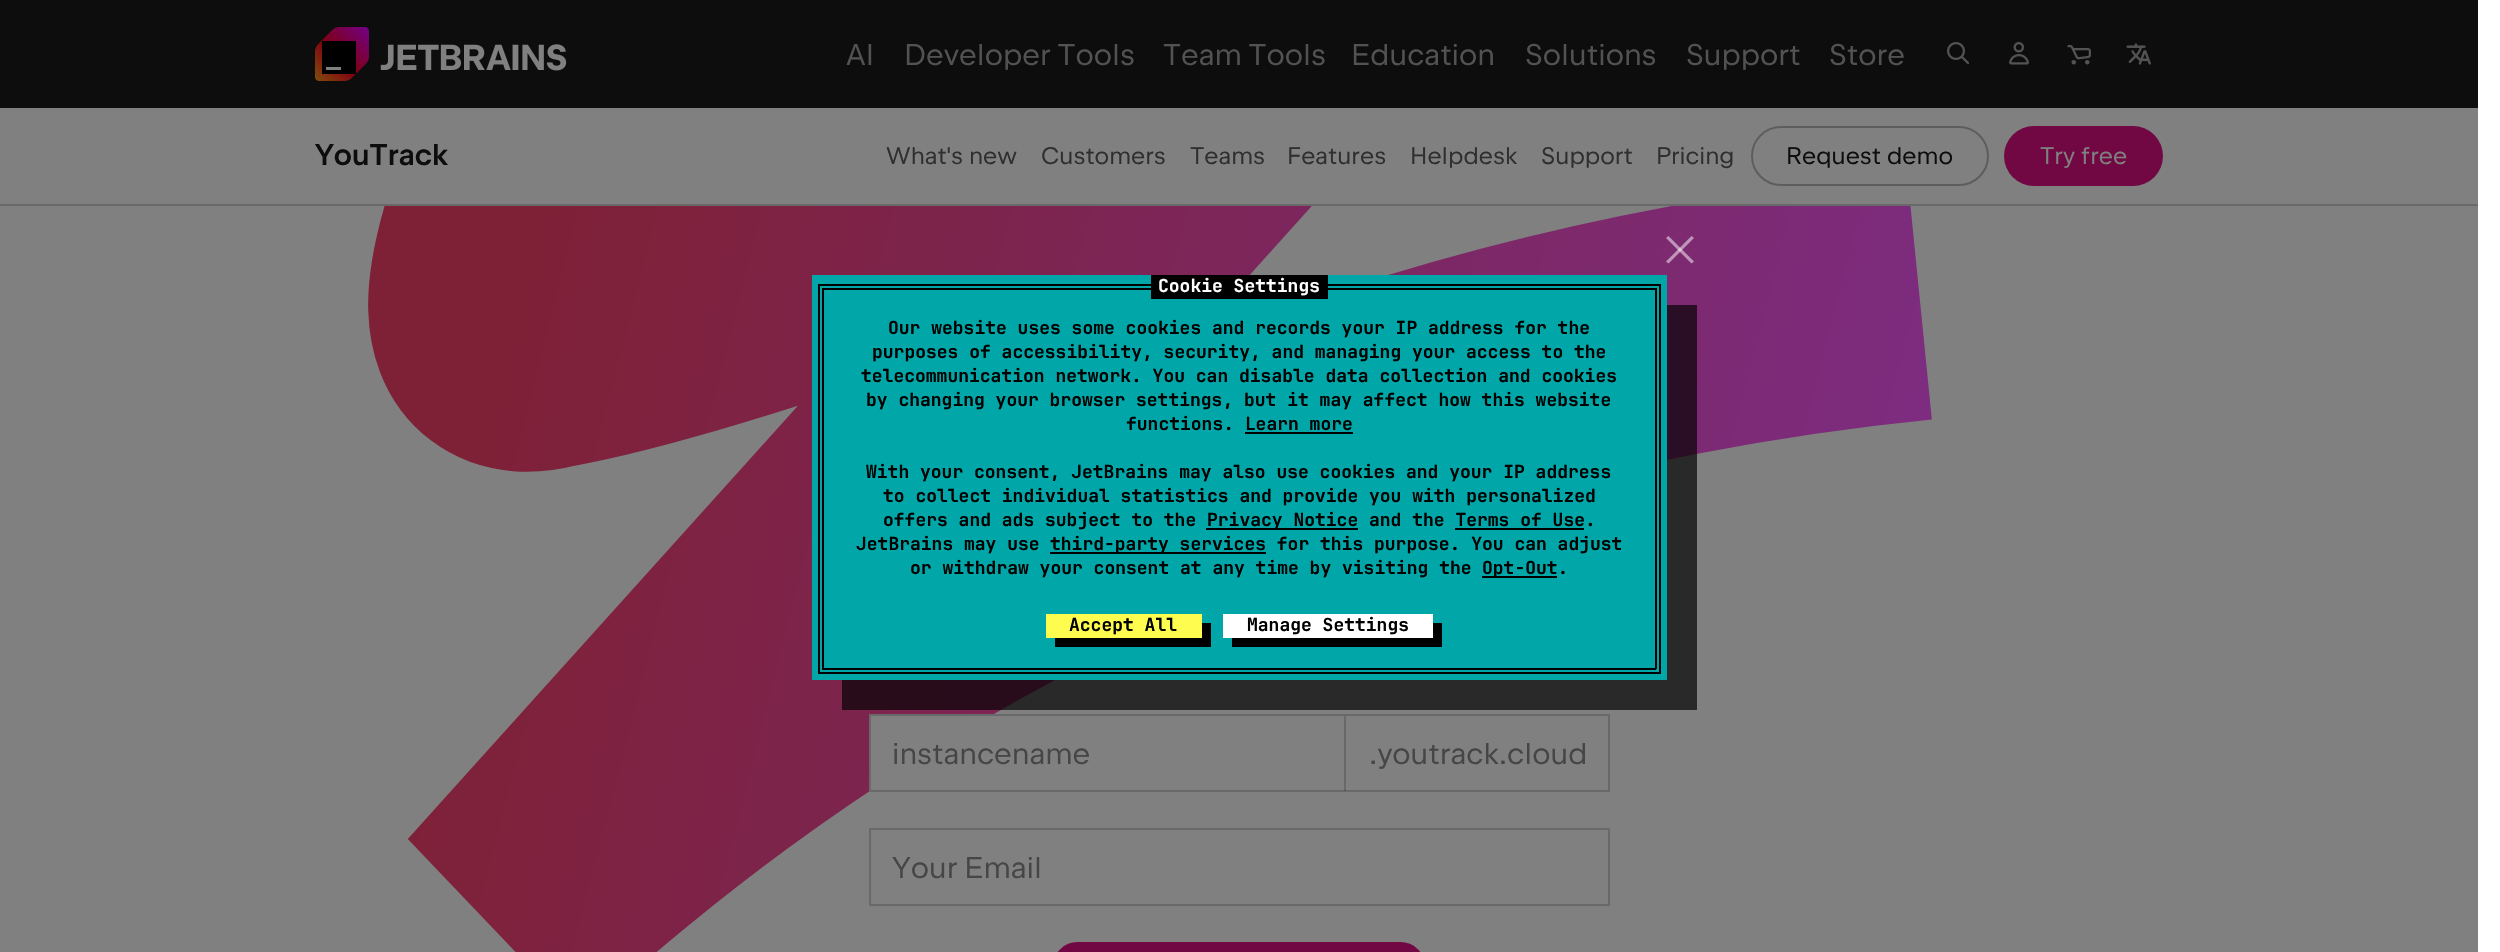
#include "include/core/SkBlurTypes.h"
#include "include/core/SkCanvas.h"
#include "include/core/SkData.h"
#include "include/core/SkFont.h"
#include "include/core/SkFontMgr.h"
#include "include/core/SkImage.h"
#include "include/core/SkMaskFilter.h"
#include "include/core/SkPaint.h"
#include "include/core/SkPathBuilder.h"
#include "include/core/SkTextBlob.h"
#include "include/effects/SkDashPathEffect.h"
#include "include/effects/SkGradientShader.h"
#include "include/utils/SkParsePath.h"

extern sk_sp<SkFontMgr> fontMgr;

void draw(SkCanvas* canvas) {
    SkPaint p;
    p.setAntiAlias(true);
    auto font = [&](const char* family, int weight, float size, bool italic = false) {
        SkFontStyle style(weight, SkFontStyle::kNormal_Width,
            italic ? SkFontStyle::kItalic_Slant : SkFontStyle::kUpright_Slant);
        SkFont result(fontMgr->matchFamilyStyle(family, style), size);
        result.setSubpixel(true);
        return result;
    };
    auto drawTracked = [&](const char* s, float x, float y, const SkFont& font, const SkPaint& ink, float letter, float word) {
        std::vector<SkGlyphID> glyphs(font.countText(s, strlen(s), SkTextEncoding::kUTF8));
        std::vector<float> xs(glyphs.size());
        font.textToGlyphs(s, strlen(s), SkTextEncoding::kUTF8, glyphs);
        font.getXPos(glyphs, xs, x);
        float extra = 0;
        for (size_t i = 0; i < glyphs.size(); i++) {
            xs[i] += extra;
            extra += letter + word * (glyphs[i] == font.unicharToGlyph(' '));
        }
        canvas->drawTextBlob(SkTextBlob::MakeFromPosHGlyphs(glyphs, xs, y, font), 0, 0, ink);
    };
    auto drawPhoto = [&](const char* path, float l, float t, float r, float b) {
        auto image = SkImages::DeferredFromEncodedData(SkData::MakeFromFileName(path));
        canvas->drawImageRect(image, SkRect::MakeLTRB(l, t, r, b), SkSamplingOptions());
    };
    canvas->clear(0xFFFFFFFF);
    p.setColor(0xFF808080);
    canvas->drawRect(SkRect::MakeLTRB(0, 108, 2478, 952), p);
    p.setColor(0xFF0D0D0E);
    canvas->drawRect(SkRect::MakeLTRB(0, 0, 2478, 108), p);
    drawPhoto("media/1.png", 315, 27, 567, 81);
    auto font1 = font("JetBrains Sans", 400, 30);
    p.setColor(0xFF525252);
    canvas->drawString("AI", 846, 65, font1, p);
    drawTracked("Developer Tools", 904, 65, font1, p, 0, -2);
    drawTracked("Team Tools", 1163, 65, font1, p, 0, -2);
    {
        const struct { const char* s; float x, y; } items[] = {
            {"Education", 1351, 65},
            {"Solutions", 1525, 65},
            {"Support", 1686, 65},
            {"Store", 1829, 65},
        };
        for (auto [s, x, y] : items) {
            canvas->drawString(s, x, y, font1, p);
        }
    }
    drawPhoto("media/2.png", 1947, 42, 1969, 64);
    drawPhoto("media/3.png", 2009, 42, 2029, 65);
    drawPhoto("media/4.png", 2067, 45, 2091, 65);
    drawPhoto("media/5.png", 2126, 43, 2151, 65);
    p.setColor(0xFF696969);
    canvas->drawRect(SkRect::MakeLTRB(0, 204, 2478, 206), p);
    auto font2 = font("JetBrains Sans", 600, 30);
    p.setColor(0xFF0D0D0E);
    canvas->drawString("YouTrack", 315, 165, font2, p);
    auto font3 = font("JetBrains Sans", 400, 24);
    p.setColor(0xFF2F2F30);
    drawTracked("What's new", 886, 164, font3, p, 0, -1);
    {
        const struct { const char* s; float x, y; } items[] = {
            {"Customers", 1041, 164},
            {"Teams", 1190, 164},
            {"Features", 1287, 164},
            {"Helpdesk", 1410, 164},
            {"Support", 1541, 164},
            {"Pricing", 1656, 164},
        };
        for (auto [s, x, y] : items) {
            canvas->drawString(s, x, y, font3, p);
        }
    }
    p.setStyle(SkPaint::kStroke_Style);
    p.setStrokeWidth(2);
    p.setColor(0xFF5D5D5E);
    canvas->drawRoundRect(SkRect::MakeLTRB(1752, 127, 1988, 185), 29, 29, p);
    p.setStyle(SkPaint::kFill_Style);
    p.setColor(0xFF0D0D0E);
    drawTracked("Request demo", 1786, 164, font3, p, 0, -1);
    p.setColor(0xFF710843);
    canvas->drawRoundRect(SkRect::MakeLTRB(2004, 126, 2163, 186), 30, 30, p);
    p.setColor(0xFF808080);
    drawTracked("Try free", 2040, 164, font3, p, 0, -1);
    canvas->save();
    canvas->clipRect(SkRect::MakeLTRB(357, 206, 1935, 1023));
    p.setStyle(SkPaint::kStroke_Style);
    p.setStrokeWidth(248.2f);
    {
        const SkColor colors[] = {0xFF7E2137, 0xFF7D265B, 0xFF7D2C7F};
        const float stops[] = {0, 0.31f, 0.62f};
        const SkPoint ends[] = {{543, 233}, {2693, 782}};
        p.setShader(SkGradientShader::MakeLinear(ends, colors, stops, 3, SkTileMode::kClamp));
        p.setAlpha(255);
    }
    canvas->drawPath(SkPathBuilder().moveTo(1919.5f, 296).cubicTo(1074.5f, 380.5f, 629, 816.5f, 500, 922).lineTo(1220, 122.5f).cubicTo(1220, 122.5f, 745.5f, 309.5f, 548, 344.5f).cubicTo(391, 386, 609.5f, -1.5f, 666, -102).detach(), p);
    canvas->restore();
    p.setStyle(SkPaint::kFill_Style);
    p.setShader(nullptr);
    p.setColor(0xFF808080);
    canvas->drawRect(SkRect::MakeLTRB(871, 716, 991, 790), p);
    p.setStyle(SkPaint::kStroke_Style);
    p.setStrokeWidth(2);
    p.setColor(0xFF696969);
    canvas->drawRect(SkRect::MakeLTRB(870, 715, 1609, 791), p);
    p.setStyle(SkPaint::kFill_Style);
    p.setColor(0xFF464647);
    canvas->drawString("instancename", 892, 764, font1, p);
    p.setColor(0x330D0D0E);
    canvas->drawRect(SkRect::MakeLTRB(1344, 716, 1346, 791), p);
    p.setColor(0xFF464647);
    canvas->drawString(".youtrack.cloud", 1369, 764, font1, p);
    p.setStyle(SkPaint::kStroke_Style);
    p.setColor(0xFF696969);
    canvas->drawRect(SkRect::MakeLTRB(870, 829, 1609, 905), p);
    p.setStyle(SkPaint::kFill_Style);
    p.setColor(0xFF464647);
    drawTracked("Your Email", 892, 878, font1, p, 0, -2);
    p.setColor(0xFF710843);
    canvas->drawRoundRect(SkRect::MakeLTRB(1053, 942, 1425, 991), 39, 39, p);
    p.setColor(0xAD000000);
    canvas->drawPath(SkPathBuilder().moveTo(842, 680).lineTo(842, 710).lineTo(1697, 710).lineTo(1697, 305).lineTo(1666, 305).lineTo(1666, 680).close().detach(), p);
    p.setColor(0xFF01A7A8);
    canvas->drawRect(SkRect::MakeLTRB(812, 275, 1667, 680), p);
    p.setColor(0xFFBE94B8);
    canvas->drawPath(SkPathBuilder().moveTo(1666, 261.5f).lineTo(1691.5f, 236).lineTo(1694, 238).lineTo(1668.5f, 263.5f).close().detach(), p);
    p.setColor(0x80FFFFFF);
    canvas->drawPath(SkPathBuilder().moveTo(1668.5f, 236).lineTo(1694, 261.5f).lineTo(1691.5f, 263.5f).lineTo(1666, 238).close().detach(), p);
    {
        const struct { float l, t, r, b; SkColor color; } items[] = {
            {822, 288, 1656, 290, 0xFF000000},
            {1655, 288, 1657, 669, 0xFF000000},
            {822, 288, 824, 614, 0xFF000000},
            {818, 284, 1661, 286, 0xFF000000},
            {1151, 275, 1328, 299, 0xFF000000},
        };
        for (auto [l, t, r, b, color] : items) {
            p.setColor(color);
            canvas->drawRect(SkRect::MakeLTRB(l, t, r, b), p);
        }
    }
    auto font4 = font("JetBrains Mono", 700, 18);
    p.setColor(0xFFFFFFFF);
    canvas->drawString("Cookie Settings", 1158, 292, font4, p);
    p.setColor(0xFF000000);
    canvas->drawRect(SkRect::MakeLTRB(1659, 284, 1661, 674), p);
    canvas->drawRect(SkRect::MakeLTRB(818, 284, 820, 612), p);
    {
        const struct { const char* s; float x, y; } items[] = {
            {"Our website uses some cookies and records your IP address for the", 888, 334},
            {"purposes of accessibility, security, and managing your access to the", 872, 358},
            {"telecommunication network. You can disable data collection and cookies", 861, 382},
            {"by changing your browser settings, but it may affect how this website", 866, 406},
            {"functions. Learn more", 1126, 430},
        };
        for (auto [s, x, y] : items) {
            canvas->drawString(s, x, y, font4, p);
        }
    }
    canvas->drawRect(SkRect::MakeLTRB(1245, 432, 1353, 434), p);
    {
        const struct { const char* s; float x, y; } items[] = {
            {"With your consent, JetBrains may also use cookies and your IP address", 866, 478},
            {"to collect individual statistics and provide you with personalized", 883, 502},
            {"offers and ads subject to the", 883, 526},
        };
        for (auto [s, x, y] : items) {
            canvas->drawString(s, x, y, font4, p);
        }
    }
    canvas->drawRect(SkRect::MakeLTRB(1206, 528, 1358, 530), p);
    canvas->drawString("Privacy Notice and the Terms of Use.", 1207, 526, font4, p);
    canvas->drawRect(SkRect::MakeLTRB(1455, 528, 1584, 530), p);
    canvas->drawString("JetBrains may use", 856, 550, font4, p);
    canvas->drawRect(SkRect::MakeLTRB(1050, 552, 1266, 554), p);
    canvas->drawString("third-party services for this purpose. You can adjust", 1050, 550, font4, p);
    canvas->drawString("or withdraw your consent at any time by visiting the", 910, 574, font4, p);
    canvas->drawRect(SkRect::MakeLTRB(1482, 576, 1557, 578), p);
    canvas->drawString("Opt-Out.", 1482, 574, font4, p);
    {
        const struct { float l, t, r, b; SkColor color; } items[] = {
            {822, 668, 1656, 670, 0xFF000000},
            {822, 614, 824, 669, 0xFF000000},
            {818, 672, 1661, 674, 0xFF000000},
            {818, 612, 820, 674, 0xFF000000},
        };
        for (auto [l, t, r, b, color] : items) {
            p.setColor(color);
            canvas->drawRect(SkRect::MakeLTRB(l, t, r, b), p);
        }
    }
    canvas->drawPath(SkPathBuilder().moveTo(1055, 638).lineTo(1055, 647).lineTo(1211, 647).lineTo(1211, 623).lineTo(1202, 623).lineTo(1202, 638).close().detach(), p);
    p.setColor(0xFFFEFC4F);
    canvas->drawRect(SkRect::MakeLTRB(1046, 614, 1202, 638), p);
    p.setColor(0xFF000000);
    canvas->drawString("Accept All", 1069, 631, font4, p);
    canvas->drawPath(SkPathBuilder().moveTo(1232, 638).lineTo(1232, 647).lineTo(1442, 647).lineTo(1442, 623).lineTo(1432, 623).lineTo(1432, 638).close().detach(), p);
    p.setColor(0xFFFFFFFF);
    canvas->drawRect(SkRect::MakeLTRB(1223, 614, 1433, 638), p);
    p.setColor(0xFF000000);
    canvas->drawString("Manage Settings", 1247, 631, font4, p);
}
